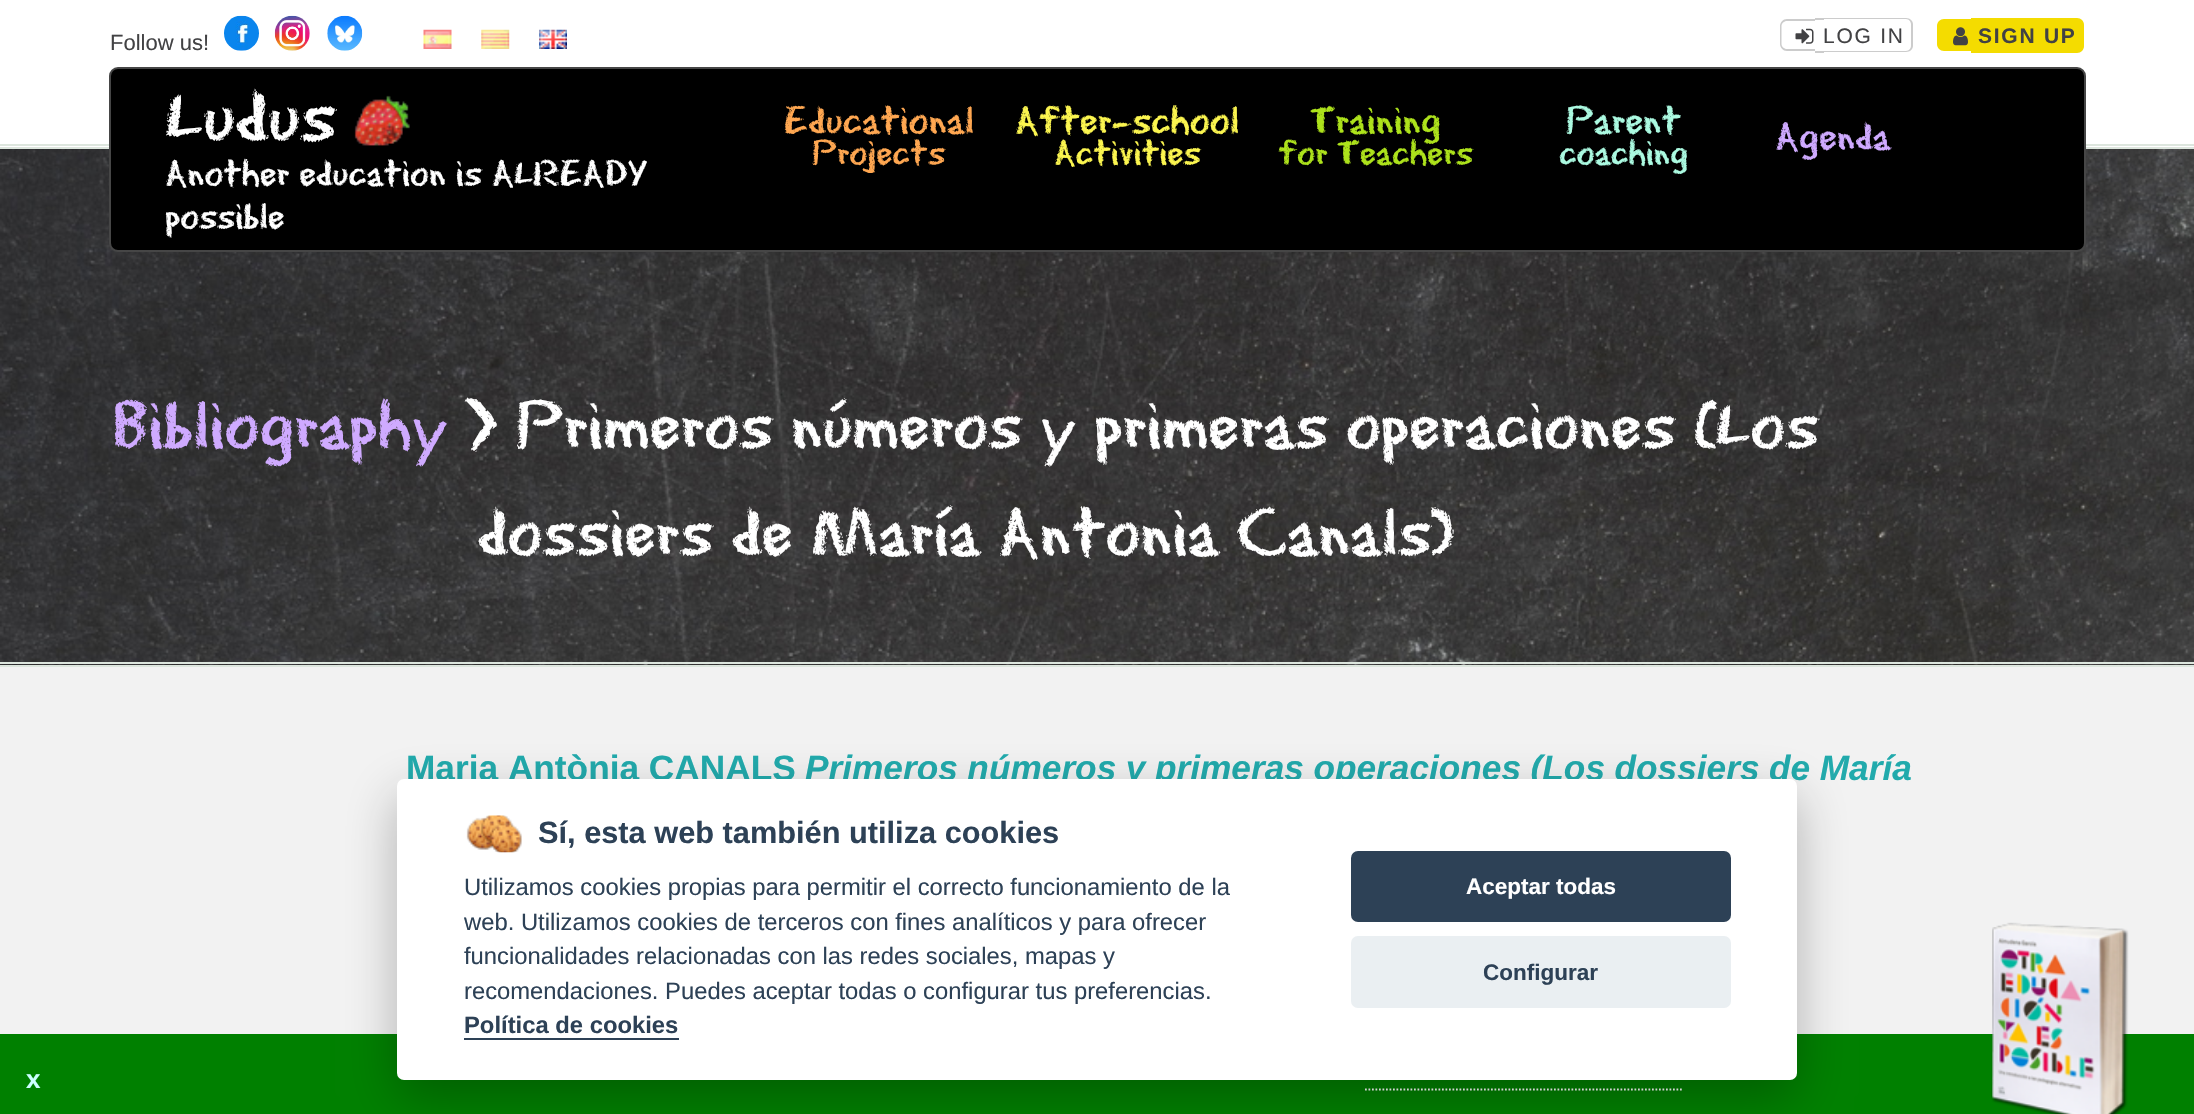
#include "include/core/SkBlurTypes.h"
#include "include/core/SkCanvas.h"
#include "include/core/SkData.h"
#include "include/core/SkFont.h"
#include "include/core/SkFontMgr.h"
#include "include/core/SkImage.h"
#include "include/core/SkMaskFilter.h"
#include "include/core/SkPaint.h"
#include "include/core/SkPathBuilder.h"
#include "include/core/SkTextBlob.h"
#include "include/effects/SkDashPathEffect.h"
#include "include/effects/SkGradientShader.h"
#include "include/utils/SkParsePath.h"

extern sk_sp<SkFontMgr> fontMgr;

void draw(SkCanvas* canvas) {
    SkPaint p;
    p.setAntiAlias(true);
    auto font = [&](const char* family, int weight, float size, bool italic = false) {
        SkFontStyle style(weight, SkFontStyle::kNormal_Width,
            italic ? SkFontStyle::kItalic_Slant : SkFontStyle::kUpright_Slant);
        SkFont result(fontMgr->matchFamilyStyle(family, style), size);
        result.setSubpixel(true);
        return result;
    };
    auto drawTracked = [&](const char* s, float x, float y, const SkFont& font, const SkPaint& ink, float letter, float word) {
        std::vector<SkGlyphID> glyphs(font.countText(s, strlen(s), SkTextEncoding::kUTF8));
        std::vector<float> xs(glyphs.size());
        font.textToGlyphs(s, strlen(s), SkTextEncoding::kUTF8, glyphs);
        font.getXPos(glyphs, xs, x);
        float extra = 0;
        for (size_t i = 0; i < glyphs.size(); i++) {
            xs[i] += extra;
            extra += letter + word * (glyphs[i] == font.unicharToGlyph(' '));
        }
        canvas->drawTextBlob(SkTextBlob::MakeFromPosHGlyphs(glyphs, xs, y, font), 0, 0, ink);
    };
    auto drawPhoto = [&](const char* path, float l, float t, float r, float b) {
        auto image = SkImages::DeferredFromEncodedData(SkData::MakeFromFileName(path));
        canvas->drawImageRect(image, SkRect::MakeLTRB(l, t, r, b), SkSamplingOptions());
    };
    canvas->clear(0xFFFFFFFF);
    drawPhoto("media/1.png", 0, 149, 2194, 665);
    p.setColor(0xFFDDE6DE);
    canvas->drawRect(SkRect::MakeLTRB(0, 144, 2194, 146), p);
    canvas->drawRect(SkRect::MakeLTRB(0, 147, 2194, 149), p);
    auto font1 = font("Liberation Sans", 400, 22);
    p.setColor(0xFF424244);
    canvas->drawString("Follow us!", 110, 50, font1, p);
    drawPhoto("media/2.png", 224, 15, 259, 51);
    drawPhoto("media/3.png", 274, 15, 310, 51);
    drawPhoto("media/4.png", 327, 15, 363, 51);
    drawPhoto("media/5.png", 423, 29, 452, 49);
    drawPhoto("media/6.png", 481, 29, 510, 49);
    drawPhoto("media/7.png", 539, 29, 567, 49);
    p.setColor(0xFFCCCCCC);
    canvas->drawPath(SkPathBuilder(SkPathFillType::kEvenOdd).moveTo(1787, 19).lineTo(1815, 19).lineTo(1815, 51).lineTo(1787, 51).cubicTo(1783, 51, 1780, 47.5f, 1780, 44).lineTo(1780, 26).cubicTo(1780, 22.5f, 1783, 19, 1787, 19).close().moveTo(1787, 21).lineTo(1815, 21).lineTo(1815, 49).lineTo(1787, 49).cubicTo(1784, 49, 1781.5f, 46.5f, 1781.5f, 44).lineTo(1781.5f, 26).cubicTo(1781.5f, 23.5f, 1784, 21, 1787, 21).close().detach(), p);
    canvas->drawRect(SkRect::MakeLTRB(1815, 18, 1824, 20), p);
    canvas->drawRect(SkRect::MakeLTRB(1815, 51, 1824, 53), p);
    canvas->drawPath(SkPathBuilder(SkPathFillType::kEvenOdd).moveTo(1824, 18).lineTo(1906, 18).cubicTo(1910, 18, 1913, 21, 1913, 24).lineTo(1913, 46).cubicTo(1913, 49, 1910, 52, 1906, 52).lineTo(1824, 52).close().moveTo(1824, 19).lineTo(1906, 19).cubicTo(1909, 19, 1911, 22, 1911, 24).lineTo(1911, 46).cubicTo(1911, 48, 1909, 51, 1906, 51).lineTo(1824, 51).close().detach(), p);
    drawPhoto("media/8.png", 1795, 28, 1814, 44);
    auto font2 = font("Liberation Sans", 400, 21);
    p.setColor(0xFF424244);
    drawTracked("LOG IN", 1823, 43, font2, p, 1.75f, 0);
    p.setColor(0xFFF4DC00);
    canvas->drawPath(SkPathBuilder().moveTo(1944, 19).lineTo(1971, 19).lineTo(1971, 51).lineTo(1944, 51).cubicTo(1940, 51, 1937, 48, 1937, 44).lineTo(1937, 26).cubicTo(1937, 22, 1940, 19, 1944, 19).close().detach(), p);
    canvas->drawPath(SkPathBuilder().moveTo(1971, 18).lineTo(2077, 18).cubicTo(2081, 18, 2084, 21, 2084, 25).lineTo(2084, 46).cubicTo(2084, 50, 2081, 53, 2077, 53).lineTo(1971, 53).close().detach(), p);
    drawPhoto("media/9.png", 1953, 27, 1968, 46);
    auto font3 = font("Liberation Sans", 700, 21);
    p.setColor(0xFF424244);
    drawTracked("SIGN UP", 1978, 43, font3, p, 1.75f, 0);
    p.setColor(0xFF000000);
    canvas->drawRoundRect(SkRect::MakeLTRB(110, 68, 2085, 251), 8, 8, p);
    p.setStyle(SkPaint::kStroke_Style);
    p.setStrokeWidth(2);
    p.setColor(0xFF464646);
    canvas->drawRoundRect(SkRect::MakeLTRB(110, 68, 2085, 251), 8, 8, p);
    auto font4 = font("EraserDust", 400, 77);
    p.setStyle(SkPaint::kFill_Style);
    p.setColor(0xFFFFFFFF);
    canvas->drawString("Ludus", 165, 142, font4, p);
    drawPhoto("media/10.png", 354, 95, 410, 146);
    auto font5 = font("EraserDust", 400, 38.4f);
    canvas->drawString("Another education is ALREADY", 165, 186, font5, p);
    canvas->drawString("possible", 165, 229, font5, p);
    auto font6 = font("EraserDust", 400, 41);
    p.setColor(0xFFFFA751);
    canvas->drawString("Educational", 784, 134, font6, p);
    auto font7 = font("EraserDust", 400, 37);
    canvas->drawString("Projects", 812, 165, font7, p);
    p.setColor(0xFFFBF54F);
    canvas->drawString("After-school", 1015, 134, font6, p);
    canvas->drawString("Activities", 1054, 165, font7, p);
    p.setColor(0xFFADE21B);
    canvas->drawString("Training", 1310, 134, font6, p);
    canvas->drawString("for Teachers", 1278, 165, font7, p);
    p.setColor(0xFFABFAE1);
    canvas->drawString("Parent", 1566, 134, font6, p);
    canvas->drawString("coaching", 1559, 165, font7, p);
    p.setColor(0xFFCFAAFF);
    canvas->drawString("Agenda", 1775, 150, font6, p);
    p.setColor(0xFFDDE6DE);
    canvas->drawRect(SkRect::MakeLTRB(0, 662, 2194, 664), p);
    canvas->drawRect(SkRect::MakeLTRB(0, 665, 2194, 667), p);
    auto font8 = font("EraserDust", 400, 71.3f);
    p.setColor(0xFFCFAAFF);
    canvas->drawString("Bibliography", 113, 449, font8, p);
    p.setColor(0xFFFFFFFF);
    canvas->drawString("> Primeros números y primeras operaciones (Los", 465, 449, font8, p);
    canvas->drawString("dossiers de María Antonia Canals)", 477, 556, font8, p);
    p.setColor(0xFFF2F2F2);
    canvas->drawRect(SkRect::MakeLTRB(0, 667, 2194, 1034), p);
    auto font9 = font("Liberation Sans", 700, 35.25f);
    p.setColor(0xFF21AAAC);
    canvas->drawString("Maria Antònia CANALS", 406, 780, font9, p);
    auto font10 = font("Liberation Sans", 700, 35.25f, true);
    drawTracked("Primeros números y primeras operaciones (Los dossiers de María", 805, 780, font10, p, 0, -0.25f);
    p.setColor(0xFF008000);
    canvas->drawRect(SkRect::MakeLTRB(0, 1034, 2194, 1114), p);
    p.setStyle(SkPaint::kStroke_Style);
    p.setStrokeWidth(1.8f);
    p.setColor(0xFFFFFFFF);
    p.setPathEffect(SkDashPathEffect::Make({{1.75f, 1.75f}}, 0));
    canvas->drawPath(SkPathBuilder().moveTo(1365, 1089.5f).lineTo(1683.5f, 1089.5f).detach(), p);
    p.setPathEffect(nullptr);
    p.setStyle(SkPaint::kFill_Style);
    p.setColor(0x47020203);
    p.setMaskFilter(SkMaskFilter::MakeBlur(kNormal_SkBlurStyle, 26));
    canvas->drawRoundRect(SkRect::MakeLTRB(397, 796, 1797, 1097), 7, 7, p);
    p.setMaskFilter(nullptr);
    p.setColor(0xFFFFFFFF);
    canvas->drawRoundRect(SkRect::MakeLTRB(397, 779, 1797, 1080), 7, 7, p);
    drawPhoto("media/11.png", 466, 815, 522, 853);
    auto font11 = font("Liberation Sans", 700, 30.75f);
    p.setColor(0xFF2D4156);
    canvas->drawString("Sí, esta web también utiliza cookies", 538, 843, font11, p);
    auto font12 = font("Liberation Sans", 400, 23.8f);
    {
        const struct { const char* s; float x, y; } items[] = {
            {"Utilizamos cookies propias para permitir el correcto funcionamiento de la", 464, 895},
            {"web. Utilizamos cookies de terceros con fines analíticos y para ofrecer", 464, 930},
            {"funcionalidades relacionadas con las redes sociales, mapas y", 464, 964},
            {"recomendaciones. Puedes aceptar todas o configurar tus preferencias.", 464, 999},
        };
        for (auto [s, x, y] : items) {
            canvas->drawString(s, x, y, font12, p);
        }
    }
    auto font13 = font("Liberation Sans", 700, 23.8f);
    canvas->drawString("Política de cookies", 464, 1033, font13, p);
    canvas->drawRect(SkRect::MakeLTRB(464, 1038, 679, 1040), p);
    canvas->drawRoundRect(SkRect::MakeLTRB(1351, 851, 1731, 922), 7, 7, p);
    auto font14 = font("Liberation Sans", 700, 22.5f);
    p.setColor(0xFFFFFFFF);
    canvas->drawString("Aceptar todas", 1466, 894, font14, p);
    p.setColor(0xFFEAEFF2);
    canvas->drawRoundRect(SkRect::MakeLTRB(1351, 936, 1731, 1008), 7, 7, p);
    p.setColor(0xFF2D4156);
    canvas->drawString("Configurar", 1483, 980, font14, p);
    auto font15 = font("Liberation Sans", 700, 26);
    p.setColor(0xFFCCFFFF);
    canvas->drawString("x", 26, 1088, font15, p);
    drawPhoto("media/12.png", 1991, 922, 2129, 1114);
}
